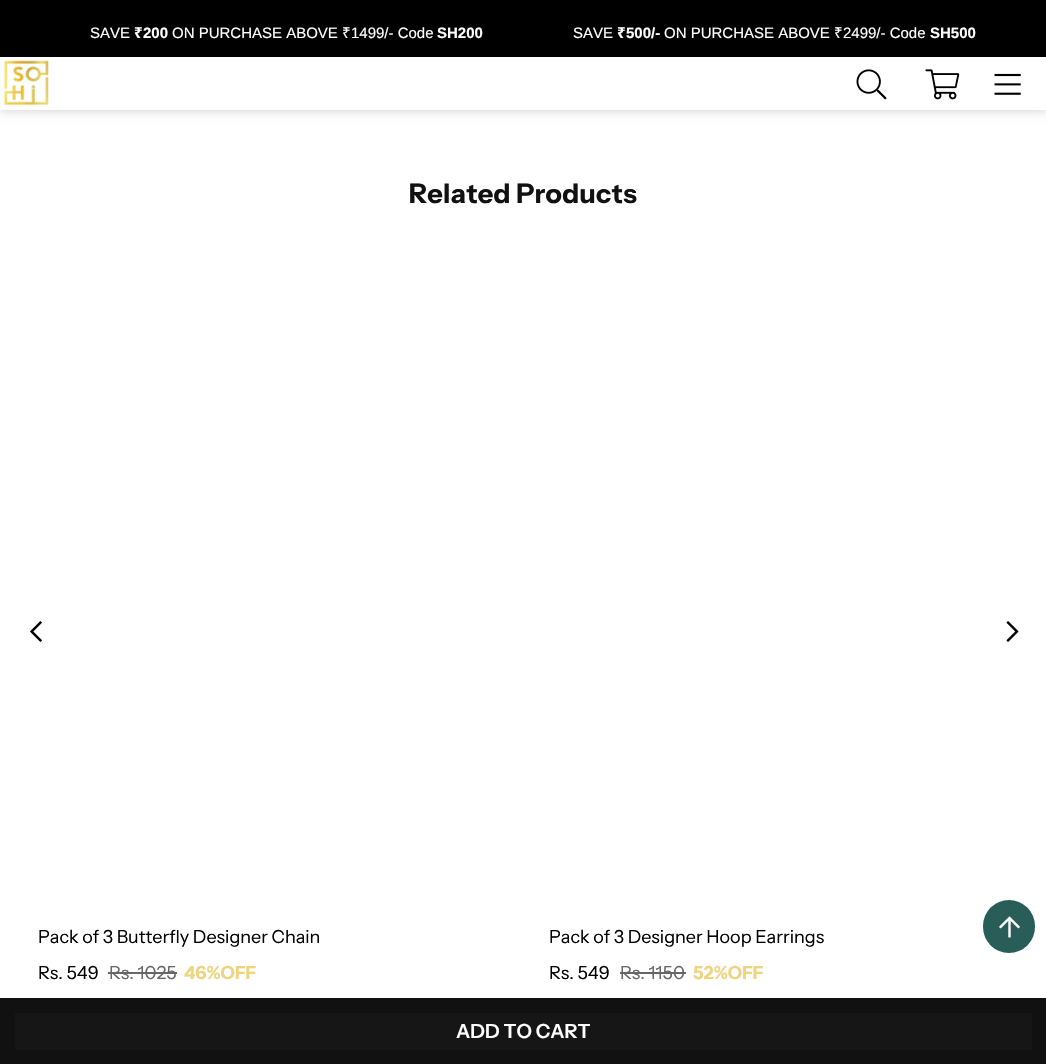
#include "include/core/SkBlurTypes.h"
#include "include/core/SkCanvas.h"
#include "include/core/SkData.h"
#include "include/core/SkFont.h"
#include "include/core/SkFontMgr.h"
#include "include/core/SkImage.h"
#include "include/core/SkMaskFilter.h"
#include "include/core/SkPaint.h"
#include "include/core/SkPathBuilder.h"
#include "include/core/SkTextBlob.h"
#include "include/effects/SkDashPathEffect.h"
#include "include/effects/SkGradientShader.h"
#include "include/utils/SkParsePath.h"

extern sk_sp<SkFontMgr> fontMgr;

void draw(SkCanvas* canvas) {
    SkPaint p;
    p.setAntiAlias(true);
    auto font = [&](const char* family, int weight, float size, bool italic = false) {
        SkFontStyle style(weight, SkFontStyle::kNormal_Width,
            italic ? SkFontStyle::kItalic_Slant : SkFontStyle::kUpright_Slant);
        SkFont result(fontMgr->matchFamilyStyle(family, style), size);
        result.setSubpixel(true);
        return result;
    };
    auto drawTracked = [&](const char* s, float x, float y, const SkFont& font, const SkPaint& ink, float letter, float word) {
        std::vector<SkGlyphID> glyphs(font.countText(s, strlen(s), SkTextEncoding::kUTF8));
        std::vector<float> xs(glyphs.size());
        font.textToGlyphs(s, strlen(s), SkTextEncoding::kUTF8, glyphs);
        font.getXPos(glyphs, xs, x);
        float extra = 0;
        for (size_t i = 0; i < glyphs.size(); i++) {
            xs[i] += extra;
            extra += letter + word * (glyphs[i] == font.unicharToGlyph(' '));
        }
        canvas->drawTextBlob(SkTextBlob::MakeFromPosHGlyphs(glyphs, xs, y, font), 0, 0, ink);
    };
    auto drawPhoto = [&](const char* path, float l, float t, float r, float b) {
        auto image = SkImages::DeferredFromEncodedData(SkData::MakeFromFileName(path));
        canvas->drawImageRect(image, SkRect::MakeLTRB(l, t, r, b), SkSamplingOptions());
    };
    canvas->clear(0xFFFFFFFF);
    p.setColor(0x33000000);
    p.setMaskFilter(SkMaskFilter::MakeBlur(kNormal_SkBlurStyle, 5));
    canvas->drawRect(SkRect::MakeLTRB(0, 0, 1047, 110), p);
    p.setMaskFilter(nullptr);
    p.setColor(0xFFFFFFFF);
    canvas->drawRect(SkRect::MakeLTRB(0, 57, 1046, 110), p);
    p.setColor(0xFF000000);
    canvas->drawRect(SkRect::MakeLTRB(0, 0, 1046, 57), p);
    auto font1 = font("Liberation Sans", 400, 15);
    p.setColor(0xFFFFFFFF);
    canvas->drawString("SAVE", 90, 38, font1, p);
    auto font2 = font("Noto Sans", 700, 15);
    canvas->drawString("₹", 134, 38, font2, p);
    auto font3 = font("Liberation Sans", 700, 15);
    canvas->drawString("200", 143, 38, font3, p);
    canvas->drawString("ON PURCHASE ABOVE", 172, 38, font1, p);
    auto font4 = font("Noto Sans", 400, 15);
    canvas->drawString("₹", 342, 38, font4, p);
    canvas->drawString("1499/- Code", 351, 38, font1, p);
    canvas->drawString("SH200", 437, 38, font3, p);
    canvas->drawString("SAVE", 573, 38, font1, p);
    canvas->drawString("₹", 617, 38, font2, p);
    canvas->drawString("500/-", 626, 38, font3, p);
    canvas->drawString("ON PURCHASE ABOVE", 664, 38, font1, p);
    canvas->drawString("₹", 834, 38, font4, p);
    canvas->drawString("2499/- Code", 843, 38, font1, p);
    canvas->drawString("SH500", 930, 38, font3, p);
    drawPhoto("media/1.png", 4, 60, 49, 106);
    drawPhoto("media/2.png", 856, 69, 887, 100);
    drawPhoto("media/3.png", 925, 69, 960, 100);
    drawPhoto("media/4.png", 994, 73, 1021, 95);
    auto font5 = font("Instrument Sans", 700, 27);
    p.setColor(0xFF111111);
    drawTracked("Related Products", 409, 203, font5, p, 0.25f, 0);
    drawPhoto("media/5.png", 30, 621, 42, 642);
    drawPhoto("media/6.png", 1006, 621, 1019, 642);
    auto font6 = font("Instrument Sans", 400, 18);
    p.setColor(0xFF000000);
    canvas->drawString("Pack of 3 Butterfly Designer Chain", 38, 943, font6, p);
    canvas->drawString("Rs. 549", 38, 979, font6, p);
    p.setColor(0xFF666666);
    canvas->drawString("Rs. 1025", 109, 979, font6, p);
    canvas->drawRect(SkRect::MakeLTRB(108, 972, 177, 974), p);
    auto font7 = font("Instrument Sans", 700, 18);
    p.setColor(0xFFEED47F);
    canvas->drawString("46%OFF", 184, 979, font7, p);
    p.setColor(0xFF000000);
    canvas->drawString("Pack of 3 Designer Hoop Earrings", 549, 943, font6, p);
    canvas->drawString("Rs. 549", 549, 979, font6, p);
    p.setColor(0xFF666666);
    canvas->drawString("Rs. 1150", 620, 979, font6, p);
    canvas->drawRect(SkRect::MakeLTRB(620, 972, 686, 974), p);
    p.setColor(0xFFEED47F);
    canvas->drawString("52%OFF", 693, 979, font7, p);
    p.setColor(0xFF111111);
    canvas->drawRect(SkRect::MakeLTRB(0, 998, 1046, 1064), p);
    p.setColor(0xFF161616);
    canvas->drawRect(SkRect::MakeLTRB(15, 1013, 1032, 1050), p);
    auto font8 = font("Instrument Sans", 600, 19.5f);
    p.setColor(0xFFFFFFFF);
    canvas->drawString("ADD TO CART", 456, 1038, font8, p);
    p.setColor(0xFF285E57);
    canvas->drawRoundRect(SkRect::MakeLTRB(983, 900, 1035, 953), 26, 26, p);
    drawPhoto("media/7.png", 999, 916, 1020, 938);
}
